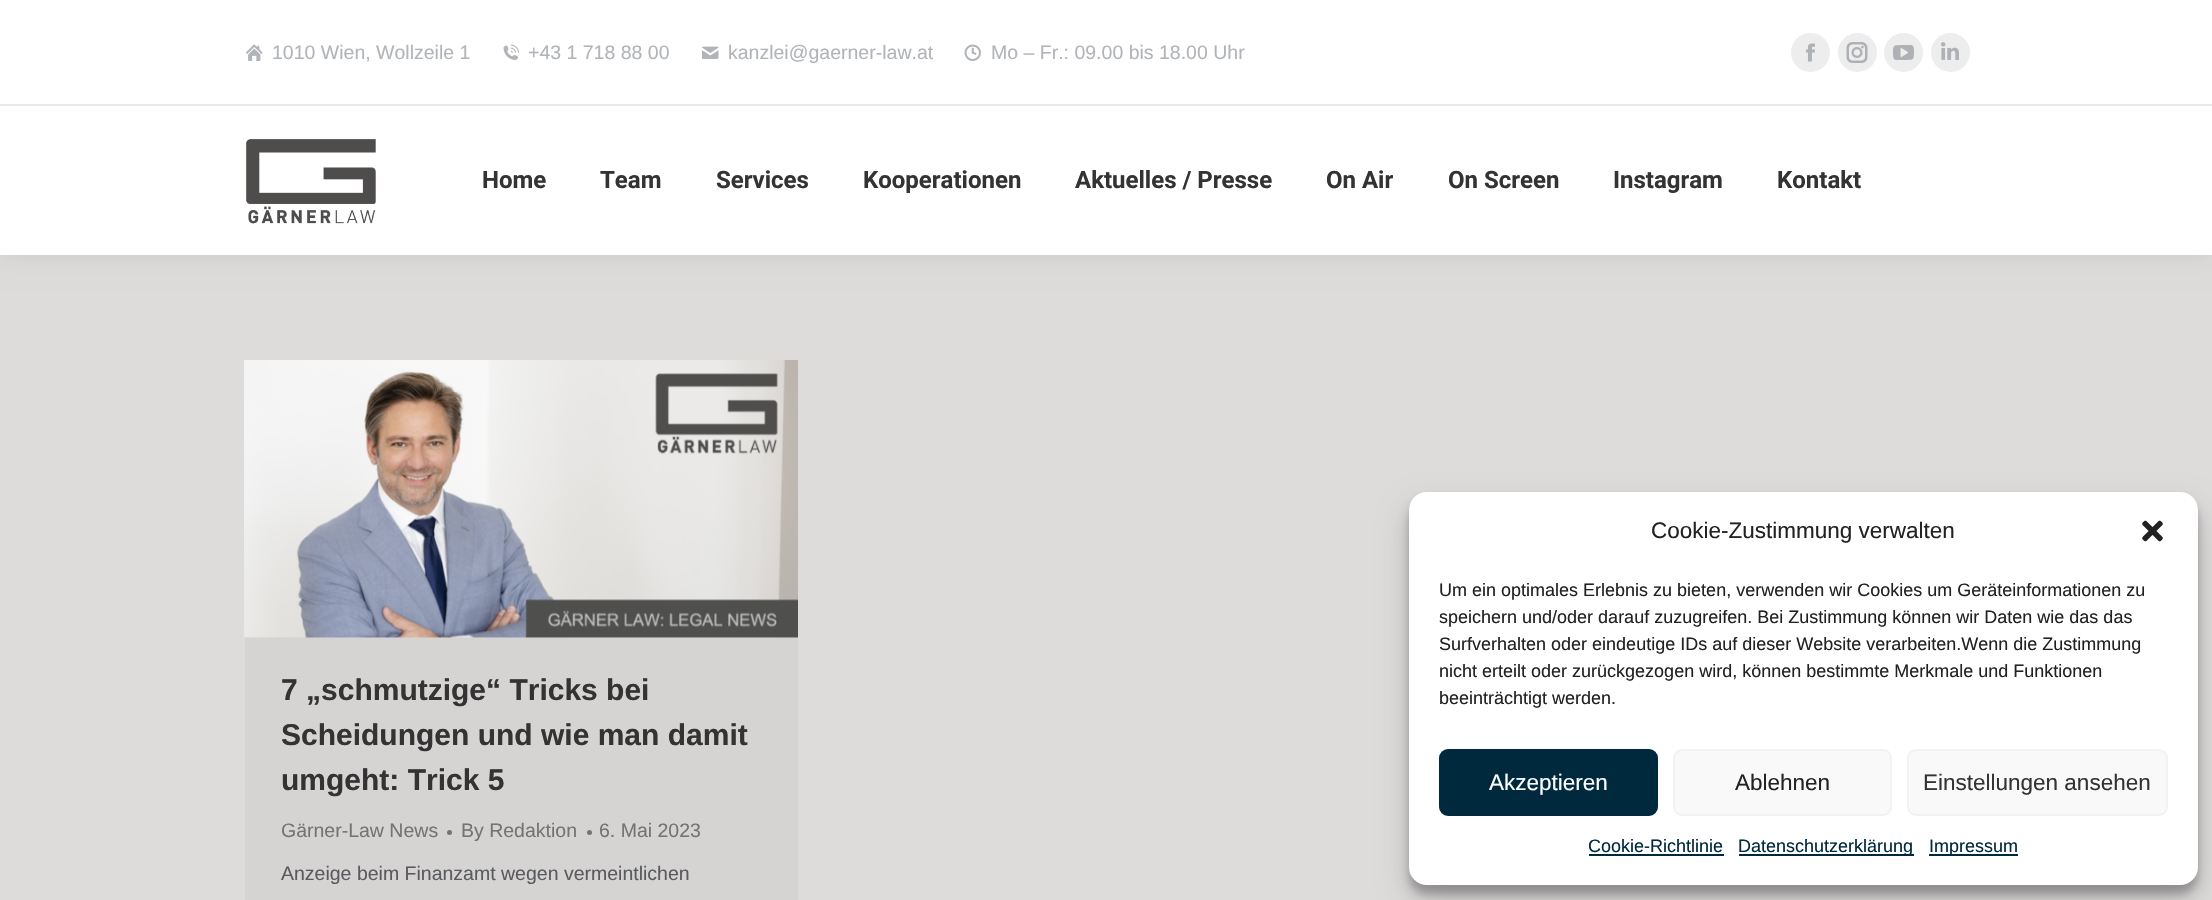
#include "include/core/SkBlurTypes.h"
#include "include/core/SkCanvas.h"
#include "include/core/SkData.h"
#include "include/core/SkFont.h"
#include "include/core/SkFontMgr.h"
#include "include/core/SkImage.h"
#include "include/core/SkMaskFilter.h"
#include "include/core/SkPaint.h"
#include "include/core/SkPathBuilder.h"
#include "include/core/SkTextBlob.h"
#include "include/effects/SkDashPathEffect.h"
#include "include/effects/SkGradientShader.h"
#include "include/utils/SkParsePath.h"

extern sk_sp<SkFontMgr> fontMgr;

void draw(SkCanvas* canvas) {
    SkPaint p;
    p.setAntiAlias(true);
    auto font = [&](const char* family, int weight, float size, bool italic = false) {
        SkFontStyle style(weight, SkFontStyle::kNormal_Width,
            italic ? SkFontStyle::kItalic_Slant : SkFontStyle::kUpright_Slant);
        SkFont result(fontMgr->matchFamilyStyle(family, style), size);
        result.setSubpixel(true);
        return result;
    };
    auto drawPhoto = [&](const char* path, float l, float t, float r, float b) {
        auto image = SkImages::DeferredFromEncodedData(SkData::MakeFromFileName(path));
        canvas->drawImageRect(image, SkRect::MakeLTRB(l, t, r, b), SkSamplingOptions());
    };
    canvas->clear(0xFFDEDBDB);
    p.setColor(0x12000000);
    p.setMaskFilter(SkMaskFilter::MakeBlur(kNormal_SkBlurStyle, 11));
    canvas->drawRect(SkRect::MakeLTRB(-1, -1, 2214, 257), p);
    p.setMaskFilter(nullptr);
    p.setColor(0xFFFFFFFF);
    canvas->drawRect(SkRect::MakeLTRB(0, 0, 2212, 255), p);
    drawPhoto("media/1.png", 246, 44, 263, 61);
    auto font1 = font("Liberation Sans", 400, 19.5f);
    p.setColor(0xFFB1B4B8);
    canvas->drawString("1010 Wien, Wollzeile 1", 272, 59, font1, p);
    drawPhoto("media/2.png", 503, 44, 519, 60);
    canvas->drawString("+43 1 718 88 00", 528, 59, font1, p);
    drawPhoto("media/3.png", 702, 46, 719, 59);
    canvas->drawString("kanzlei@gaerner-law.at", 728, 59, font1, p);
    drawPhoto("media/4.png", 964, 44, 981, 61);
    canvas->drawString("Mo – Fr.: 09.00 bis 18.00 Uhr", 991, 59, font1, p);
    p.setColor(0xFFEDEDED);
    canvas->drawCircle(1810.5f, 52.5f, 19.5f, p);
    drawPhoto("media/5.png", 1806, 43, 1815, 62);
    canvas->drawCircle(1857.5f, 52.5f, 19.5f, p);
    drawPhoto("media/6.png", 1846, 42, 1868, 63);
    canvas->drawCircle(1903.5f, 52.5f, 19.5f, p);
    drawPhoto("media/7.png", 1893, 45, 1914, 60);
    canvas->drawCircle(1950.5f, 52.5f, 19.5f, p);
    drawPhoto("media/8.png", 1941, 42, 1959, 60);
    p.setColor(0xFFE9E9E9);
    canvas->drawRect(SkRect::MakeLTRB(0, 104, 2212, 106), p);
    drawPhoto("media/9.png", 246, 138, 376, 224);
    auto font2 = font("Roboto", 700, 24);
    p.setColor(0xFF333333);
    {
        const struct { const char* s; float x, y; } items[] = {
            {"Home", 482, 188},
            {"Team", 600, 188},
            {"Services", 716, 188},
            {"Kooperationen", 863, 188},
            {"Aktuelles / Presse", 1075, 188},
            {"On Air", 1326, 188},
            {"On Screen", 1448, 188},
            {"Instagram", 1613, 188},
            {"Kontakt", 1777, 188},
        };
        for (auto [s, x, y] : items) {
            canvas->drawString(s, x, y, font2, p);
        }
    }
    p.setColor(0xFFD6D3D3);
    canvas->drawRect(SkRect::MakeLTRB(245, 637, 798, 900), p);
    drawPhoto("media/10.png", 244, 360, 798, 638);
    auto font3 = font("Liberation Sans", 700, 30);
    p.setColor(0xFF333333);
    {
        const struct { const char* s; float x, y; } items[] = {
            {"7 „schmutzige“ Tricks bei", 281, 700},
            {"Scheidungen und wie man damit", 281, 745},
            {"umgeht: Trick 5", 281, 790},
        };
        for (auto [s, x, y] : items) {
            canvas->drawString(s, x, y, font3, p);
        }
    }
    p.setColor(0xFF727475);
    canvas->drawString("Gärner-Law News", 281, 837, font1, p);
    canvas->drawCircle(449.5f, 832.5f, 2.5f, p);
    canvas->drawString("By Redaktion", 461, 837, font1, p);
    canvas->drawCircle(589.5f, 832.5f, 2.5f, p);
    canvas->drawString("6. Mai 2023", 599, 837, font1, p);
    p.setColor(0xFF595B5E);
    canvas->drawString("Anzeige beim Finanzamt wegen vermeintlichen", 281, 880, font1, p);
    p.setColor(0x3B000000);
    p.setMaskFilter(SkMaskFilter::MakeBlur(kNormal_SkBlurStyle, 4.5f));
    canvas->drawRoundRect(SkRect::MakeLTRB(1409, 501, 2198, 894), 18, 18, p);
    p.setMaskFilter(nullptr);
    p.setColor(0x30000000);
    p.setMaskFilter(SkMaskFilter::MakeBlur(kNormal_SkBlurStyle, 15));
    canvas->drawRoundRect(SkRect::MakeLTRB(1409, 507, 2198, 900), 18, 18, p);
    p.setMaskFilter(nullptr);
    p.setColor(0xFFFFFFFF);
    canvas->drawRoundRect(SkRect::MakeLTRB(1409, 492, 2198, 885), 18, 18, p);
    auto font4 = font("Liberation Sans", 400, 22.5f);
    p.setColor(0xFF222222);
    canvas->drawString("Cookie-Zustimmung verwalten", 1651, 538, font4, p);
    drawPhoto("media/11.png", 2142, 520, 2163, 542);
    auto font5 = font("Liberation Sans", 400, 18);
    {
        const struct { const char* s; float x, y; } items[] = {
            {"Um ein optimales Erlebnis zu bieten, verwenden wir Cookies um Geräteinformationen zu", 1439, 596},
            {"speichern und/oder darauf zuzugreifen. Bei Zustimmung können wir Daten wie das das", 1439, 623},
            {"Surfverhalten oder eindeutige IDs auf dieser Website verarbeiten.Wenn die Zustimmung", 1439, 650},
            {"nicht erteilt oder zurückgezogen wird, können bestimmte Merkmale und Funktionen", 1439, 677},
            {"beeinträchtigt werden.", 1439, 704},
        };
        for (auto [s, x, y] : items) {
            canvas->drawString(s, x, y, font5, p);
        }
    }
    p.setColor(0xFF00293E);
    canvas->drawRoundRect(SkRect::MakeLTRB(1440, 750, 1657, 815), 8, 8, p);
    p.setStyle(SkPaint::kStroke_Style);
    p.setStrokeWidth(2);
    canvas->drawRoundRect(SkRect::MakeLTRB(1440, 750, 1657, 815), 8, 8, p);
    p.setStyle(SkPaint::kFill_Style);
    p.setColor(0xFFFFFFFF);
    canvas->drawString("Akzeptieren", 1489, 790, font4, p);
    p.setColor(0xFFF9F9F9);
    canvas->drawRoundRect(SkRect::MakeLTRB(1674, 750, 1891, 815), 8, 8, p);
    p.setStyle(SkPaint::kStroke_Style);
    p.setColor(0xFFF2F2F2);
    canvas->drawRoundRect(SkRect::MakeLTRB(1674, 750, 1891, 815), 8, 8, p);
    p.setStyle(SkPaint::kFill_Style);
    p.setColor(0xFF222222);
    canvas->drawString("Ablehnen", 1735, 790, font4, p);
    p.setColor(0xFFF9F9F9);
    canvas->drawRoundRect(SkRect::MakeLTRB(1908, 750, 2167, 815), 8, 8, p);
    p.setStyle(SkPaint::kStroke_Style);
    p.setColor(0xFFF2F2F2);
    canvas->drawRoundRect(SkRect::MakeLTRB(1908, 750, 2167, 815), 8, 8, p);
    p.setStyle(SkPaint::kFill_Style);
    p.setColor(0xFF333333);
    canvas->drawString("Einstellungen ansehen", 1923, 790, font4, p);
    p.setColor(0xFF00293E);
    canvas->drawString("Cookie-Richtlinie", 1588, 852, font5, p);
    canvas->drawRect(SkRect::MakeLTRB(1589, 854, 1724, 856), p);
    canvas->drawRect(SkRect::MakeLTRB(1739, 854, 1914, 856), p);
    canvas->drawString("Datenschutzerklärung", 1738, 852, font5, p);
    canvas->drawRect(SkRect::MakeLTRB(1929, 854, 2018, 856), p);
    canvas->drawString("Impressum", 1929, 852, font5, p);
}
